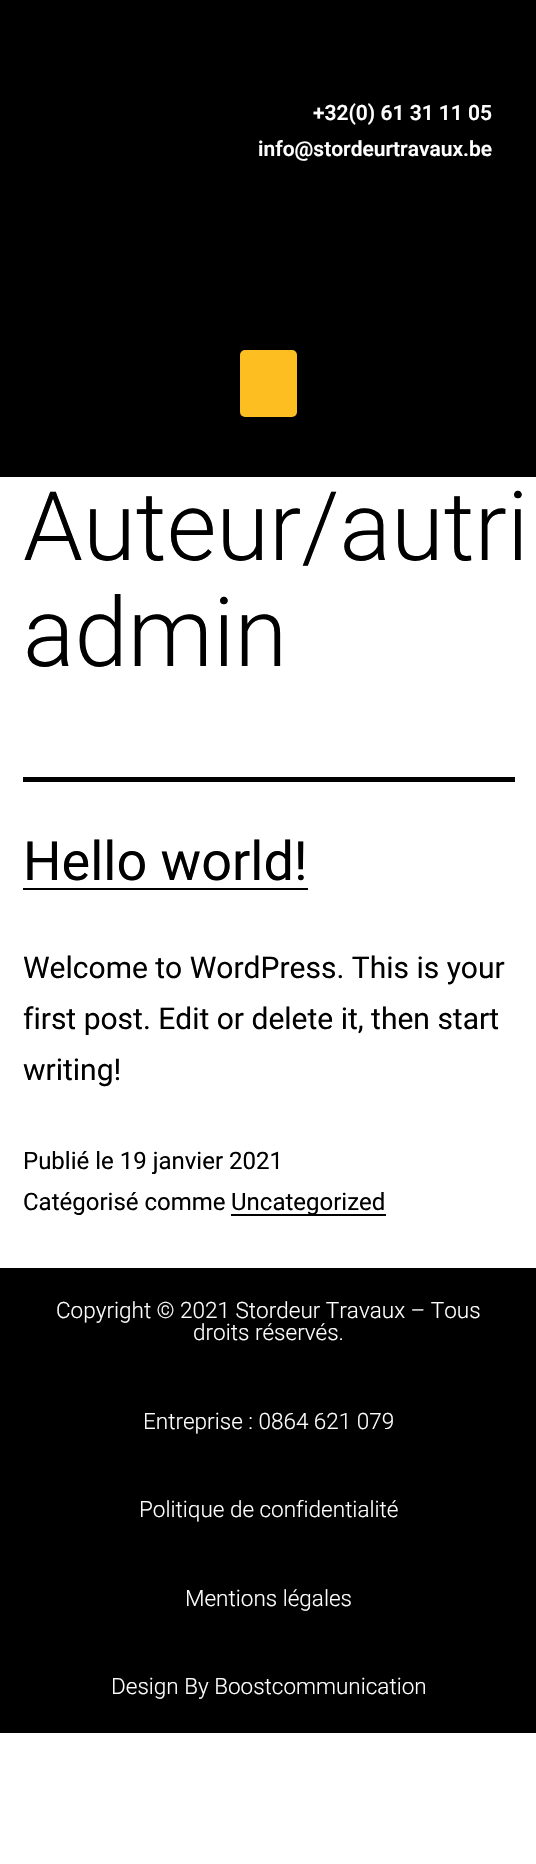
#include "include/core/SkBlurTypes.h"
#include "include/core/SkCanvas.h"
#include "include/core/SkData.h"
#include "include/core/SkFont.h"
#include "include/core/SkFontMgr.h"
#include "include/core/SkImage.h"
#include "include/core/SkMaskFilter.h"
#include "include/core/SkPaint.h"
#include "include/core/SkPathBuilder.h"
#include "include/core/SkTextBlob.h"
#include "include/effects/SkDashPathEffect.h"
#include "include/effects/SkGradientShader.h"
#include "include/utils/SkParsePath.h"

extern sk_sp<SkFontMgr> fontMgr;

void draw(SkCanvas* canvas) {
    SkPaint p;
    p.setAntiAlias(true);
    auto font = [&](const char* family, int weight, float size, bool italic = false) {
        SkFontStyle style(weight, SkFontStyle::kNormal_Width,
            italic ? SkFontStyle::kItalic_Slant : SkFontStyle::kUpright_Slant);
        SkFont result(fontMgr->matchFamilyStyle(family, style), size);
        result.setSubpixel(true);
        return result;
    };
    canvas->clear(0xFFFFFFFF);
    p.setColor(0xFF000000);
    canvas->drawRect(SkRect::MakeLTRB(0, 0, 536, 477), p);
    auto font1 = font("Roboto", 600, 21);
    p.setColor(0xFFFFFFFF);
    canvas->drawString("+32(0) 61 31 11 05", 313, 120, font1, p);
    canvas->drawString("info@stordeurtravaux.be", 258, 156, font1, p);
    p.setColor(0xFFFDBE21);
    canvas->drawRoundRect(SkRect::MakeLTRB(240, 350, 297, 417), 5, 5, p);
    p.setColor(0xFF000000);
    canvas->drawRect(SkRect::MakeLTRB(23, 777, 515, 782), p);
    auto font2 = font("Roboto", 300, 96);
    canvas->drawString("Auteur/autri", 23, 560, font2, p);
    canvas->drawString("admin", 23, 666, font2, p);
    auto font3 = font("Roboto", 400, 54);
    canvas->drawString("Hello world!", 23, 880, font3, p);
    canvas->drawRect(SkRect::MakeLTRB(23, 888, 308, 890), p);
    auto font4 = font("Roboto", 400, 30);
    {
        const struct { const char* s; float x, y; } items[] = {
            {"Welcome to WordPress. This is your", 23, 978},
            {"first post. Edit or delete it, then start", 23, 1029},
            {"writing!", 23, 1080},
        };
        for (auto [s, x, y] : items) {
            canvas->drawString(s, x, y, font4, p);
        }
    }
    auto font5 = font("Roboto", 400, 24);
    canvas->drawString("Publié le 19 janvier 2021", 23, 1169, font5, p);
    canvas->drawString("Catégorisé comme", 23, 1210, font5, p);
    canvas->drawRect(SkRect::MakeLTRB(231, 1214, 386, 1216), p);
    canvas->drawString("Uncategorized", 231, 1210, font5, p);
    canvas->drawRect(SkRect::MakeLTRB(0, 1268, 536, 1733), p);
    auto font6 = font("Roboto", 300, 22.5f);
    p.setColor(0xFFFFFFFF);
    {
        const struct { const char* s; float x, y; } items[] = {
            {"Copyright © 2021 Stordeur Travaux – Tous", 56, 1318},
            {"droits réservés.", 193, 1340},
            {"Entreprise : 0864 621 079", 143, 1429},
            {"Politique de confidentialité", 139, 1517},
            {"Mentions légales", 185, 1606},
            {"Design By Boostcommunication", 111, 1694},
        };
        for (auto [s, x, y] : items) {
            canvas->drawString(s, x, y, font6, p);
        }
    }
}
